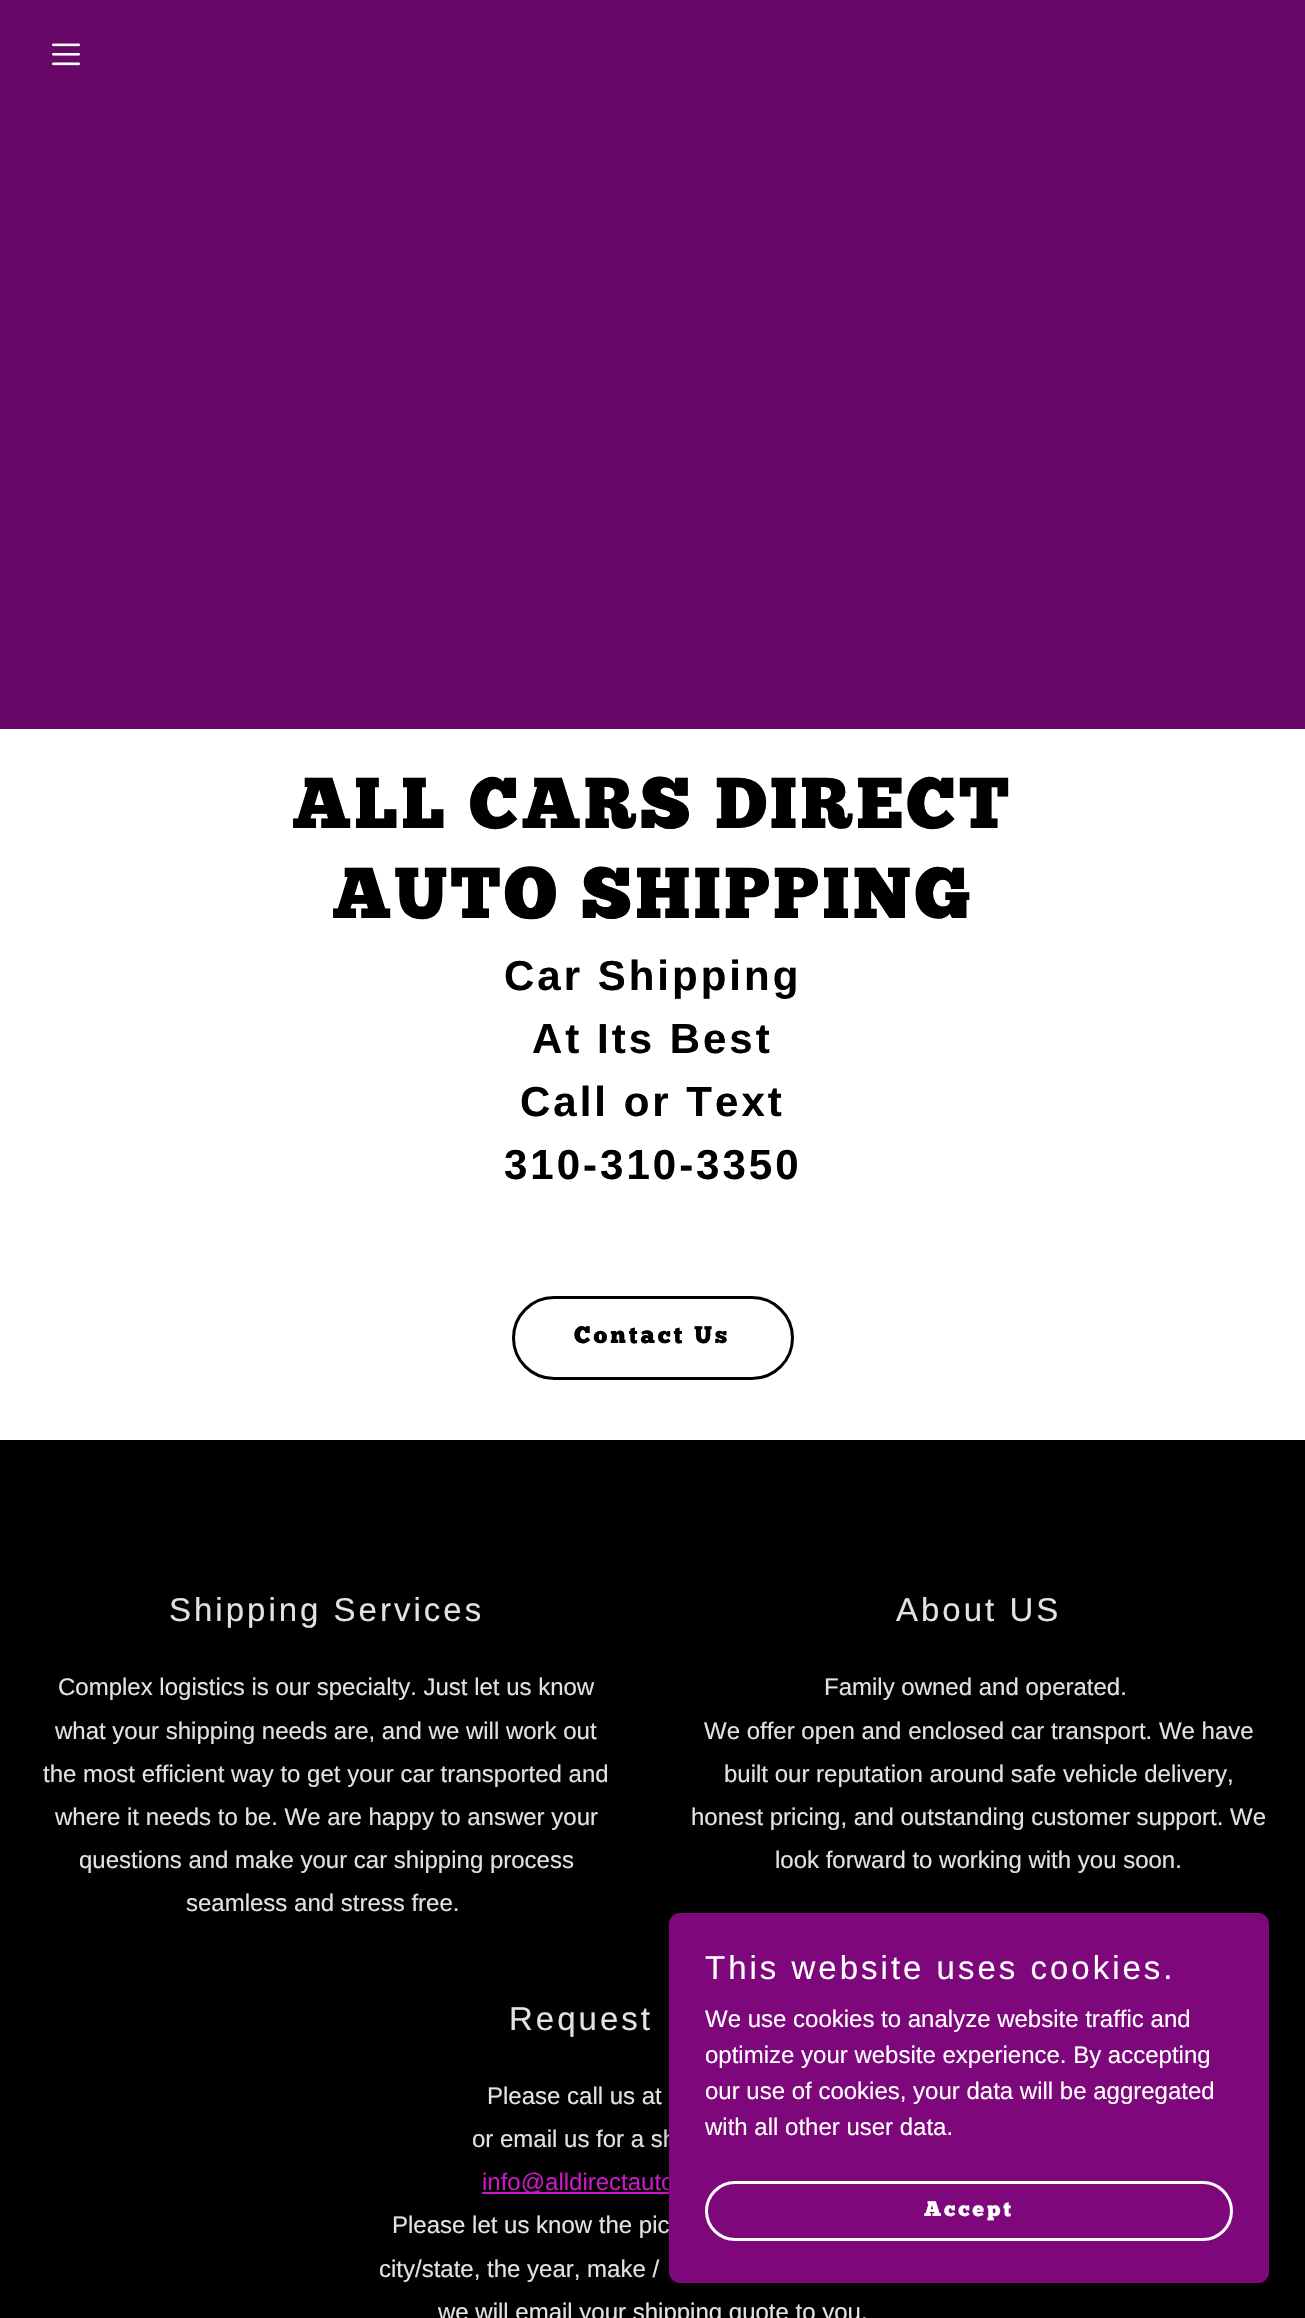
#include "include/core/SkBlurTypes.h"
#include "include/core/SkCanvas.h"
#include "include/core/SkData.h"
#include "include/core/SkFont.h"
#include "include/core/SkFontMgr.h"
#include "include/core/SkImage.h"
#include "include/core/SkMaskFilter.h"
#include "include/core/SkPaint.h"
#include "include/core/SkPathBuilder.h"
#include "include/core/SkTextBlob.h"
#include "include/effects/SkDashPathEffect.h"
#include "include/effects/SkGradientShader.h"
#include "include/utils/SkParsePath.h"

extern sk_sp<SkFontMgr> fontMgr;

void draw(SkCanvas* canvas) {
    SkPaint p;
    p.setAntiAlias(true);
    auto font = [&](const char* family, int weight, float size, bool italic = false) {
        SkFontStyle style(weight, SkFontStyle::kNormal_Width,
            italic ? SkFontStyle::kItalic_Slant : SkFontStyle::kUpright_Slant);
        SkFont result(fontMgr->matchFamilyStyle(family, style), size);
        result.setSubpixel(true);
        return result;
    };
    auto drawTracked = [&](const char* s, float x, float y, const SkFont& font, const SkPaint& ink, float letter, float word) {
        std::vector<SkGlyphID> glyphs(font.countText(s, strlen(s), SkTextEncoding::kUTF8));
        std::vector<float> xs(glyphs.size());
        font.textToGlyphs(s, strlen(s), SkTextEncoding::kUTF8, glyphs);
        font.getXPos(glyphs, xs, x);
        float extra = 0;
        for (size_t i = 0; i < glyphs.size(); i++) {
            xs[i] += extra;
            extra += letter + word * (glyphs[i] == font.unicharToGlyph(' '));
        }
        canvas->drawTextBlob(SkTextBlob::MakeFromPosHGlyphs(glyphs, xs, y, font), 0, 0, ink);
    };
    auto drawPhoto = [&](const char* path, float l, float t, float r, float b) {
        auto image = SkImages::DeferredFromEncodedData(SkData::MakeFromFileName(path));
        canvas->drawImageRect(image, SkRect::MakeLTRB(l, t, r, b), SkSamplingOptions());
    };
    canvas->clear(0xFF000000);
    p.setColor(0xFF680768);
    canvas->drawRect(SkRect::MakeLTRB(0, 0, 1305, 729), p);
    drawPhoto("media/1.png", 52, 43, 80, 66);
    p.setColor(0xFFFFFFFF);
    canvas->drawRect(SkRect::MakeLTRB(0, 729, 1305, 1440), p);
    auto font1 = font("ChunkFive", 400, 72);
    p.setColor(0xFF000000);
    drawTracked("ALL CARS DIRECT", 292, 828, font1, p, 3, 0);
    drawTracked("AUTO SHIPPING", 332, 918, font1, p, 3, 0);
    auto font2 = font("Liberation Sans", 700, 42);
    {
        const struct { const char* s; float x, y; } items[] = {
            {"Car Shipping", 504, 990},
            {"At Its Best", 532, 1053},
            {"Call or Text", 520, 1116},
            {"310-310-3350", 504, 1179},
        };
        for (auto [s, x, y] : items) {
            drawTracked(s, x, y, font2, p, 3, 0);
        }
    }
    p.setStyle(SkPaint::kStroke_Style);
    p.setStrokeWidth(3);
    canvas->drawRoundRect(SkRect::MakeLTRB(513.5f, 1297.5f, 792.5f, 1378.5f), 40.5f, 40.5f, p);
    auto font3 = font("ChunkFive", 400, 24);
    p.setStyle(SkPaint::kFill_Style);
    drawTracked("Contact Us", 574, 1343, font3, p, 3, 0);
    auto font4 = font("Liberation Sans", 400, 33);
    p.setColor(0xFFE2E2E2);
    drawTracked("Shipping Services", 169, 1621, font4, p, 3, 0);
    auto font5 = font("Liberation Sans", 400, 24);
    {
        const struct { const char* s; float x, y; } items[] = {
            {"Complex logistics is our specialty. Just let us know", 58, 1695},
            {"what your shipping needs are, and we will work out", 55, 1739},
            {"the most efficient way to get your car transported and", 43, 1782},
            {"where it needs to be. We are happy to answer your", 55, 1825},
            {"questions and make your car shipping process", 79, 1868},
            {"seamless and stress free.", 186, 1911},
        };
        for (auto [s, x, y] : items) {
            canvas->drawString(s, x, y, font5, p);
        }
    }
    drawTracked("About US", 896, 1621, font4, p, 3, 0);
    {
        const struct { const char* s; float x, y; } items[] = {
            {"Family owned and operated.", 824, 1695},
            {"We offer open and enclosed car transport. We have", 704, 1739},
            {"built our reputation around safe vehicle delivery,", 724, 1782},
            {"honest pricing, and outstanding customer support. We", 691, 1825},
            {"look forward to working with you soon.", 775, 1868},
        };
        for (auto [s, x, y] : items) {
            canvas->drawString(s, x, y, font5, p);
        }
    }
    drawTracked("Request", 509, 2030, font4, p, 3, 0);
    canvas->drawString("Please call us at", 487, 2104, font5, p);
    canvas->drawString("or email us for a sh", 472, 2147, font5, p);
    p.setColor(0xFFCC16C9);
    canvas->drawRect(SkRect::MakeLTRB(482, 2192, 669, 2194), p);
    canvas->drawString("info@alldirectauto", 482, 2190, font5, p);
    p.setColor(0xFFE2E2E2);
    {
        const struct { const char* s; float x, y; } items[] = {
            {"Please let us know the pic", 392, 2233},
            {"city/state, the year, make /", 379, 2277},
            {"we will email your shipping quote to you.", 438, 2320},
        };
        for (auto [s, x, y] : items) {
            canvas->drawString(s, x, y, font5, p);
        }
    }
    p.setColor(0x4D000000);
    p.setMaskFilter(SkMaskFilter::MakeBlur(kNormal_SkBlurStyle, 4.5f));
    canvas->drawRoundRect(SkRect::MakeLTRB(669, 1916, 1269, 2286), 11, 11, p);
    p.setMaskFilter(nullptr);
    p.setColor(0xFF7E077C);
    canvas->drawRoundRect(SkRect::MakeLTRB(669, 1913, 1269, 2283), 11, 11, p);
    p.setColor(0xFFFFFFFF);
    drawTracked("This website uses cookies.", 705, 1979, font4, p, 3, 0);
    {
        const struct { const char* s; float x, y; } items[] = {
            {"We use cookies to analyze website traffic and", 705, 2027},
            {"optimize your website experience. By accepting", 705, 2063},
            {"our use of cookies, your data will be aggregated", 705, 2099},
            {"with all other user data.", 705, 2135},
        };
        for (auto [s, x, y] : items) {
            canvas->drawString(s, x, y, font5, p);
        }
    }
    p.setStyle(SkPaint::kStroke_Style);
    canvas->drawRoundRect(SkRect::MakeLTRB(706.5f, 2182.5f, 1231.5f, 2239.5f), 28.5f, 28.5f, p);
    auto font6 = font("ChunkFive", 400, 21);
    p.setStyle(SkPaint::kFill_Style);
    drawTracked("Accept", 924, 2216, font6, p, 3, 0);
}
